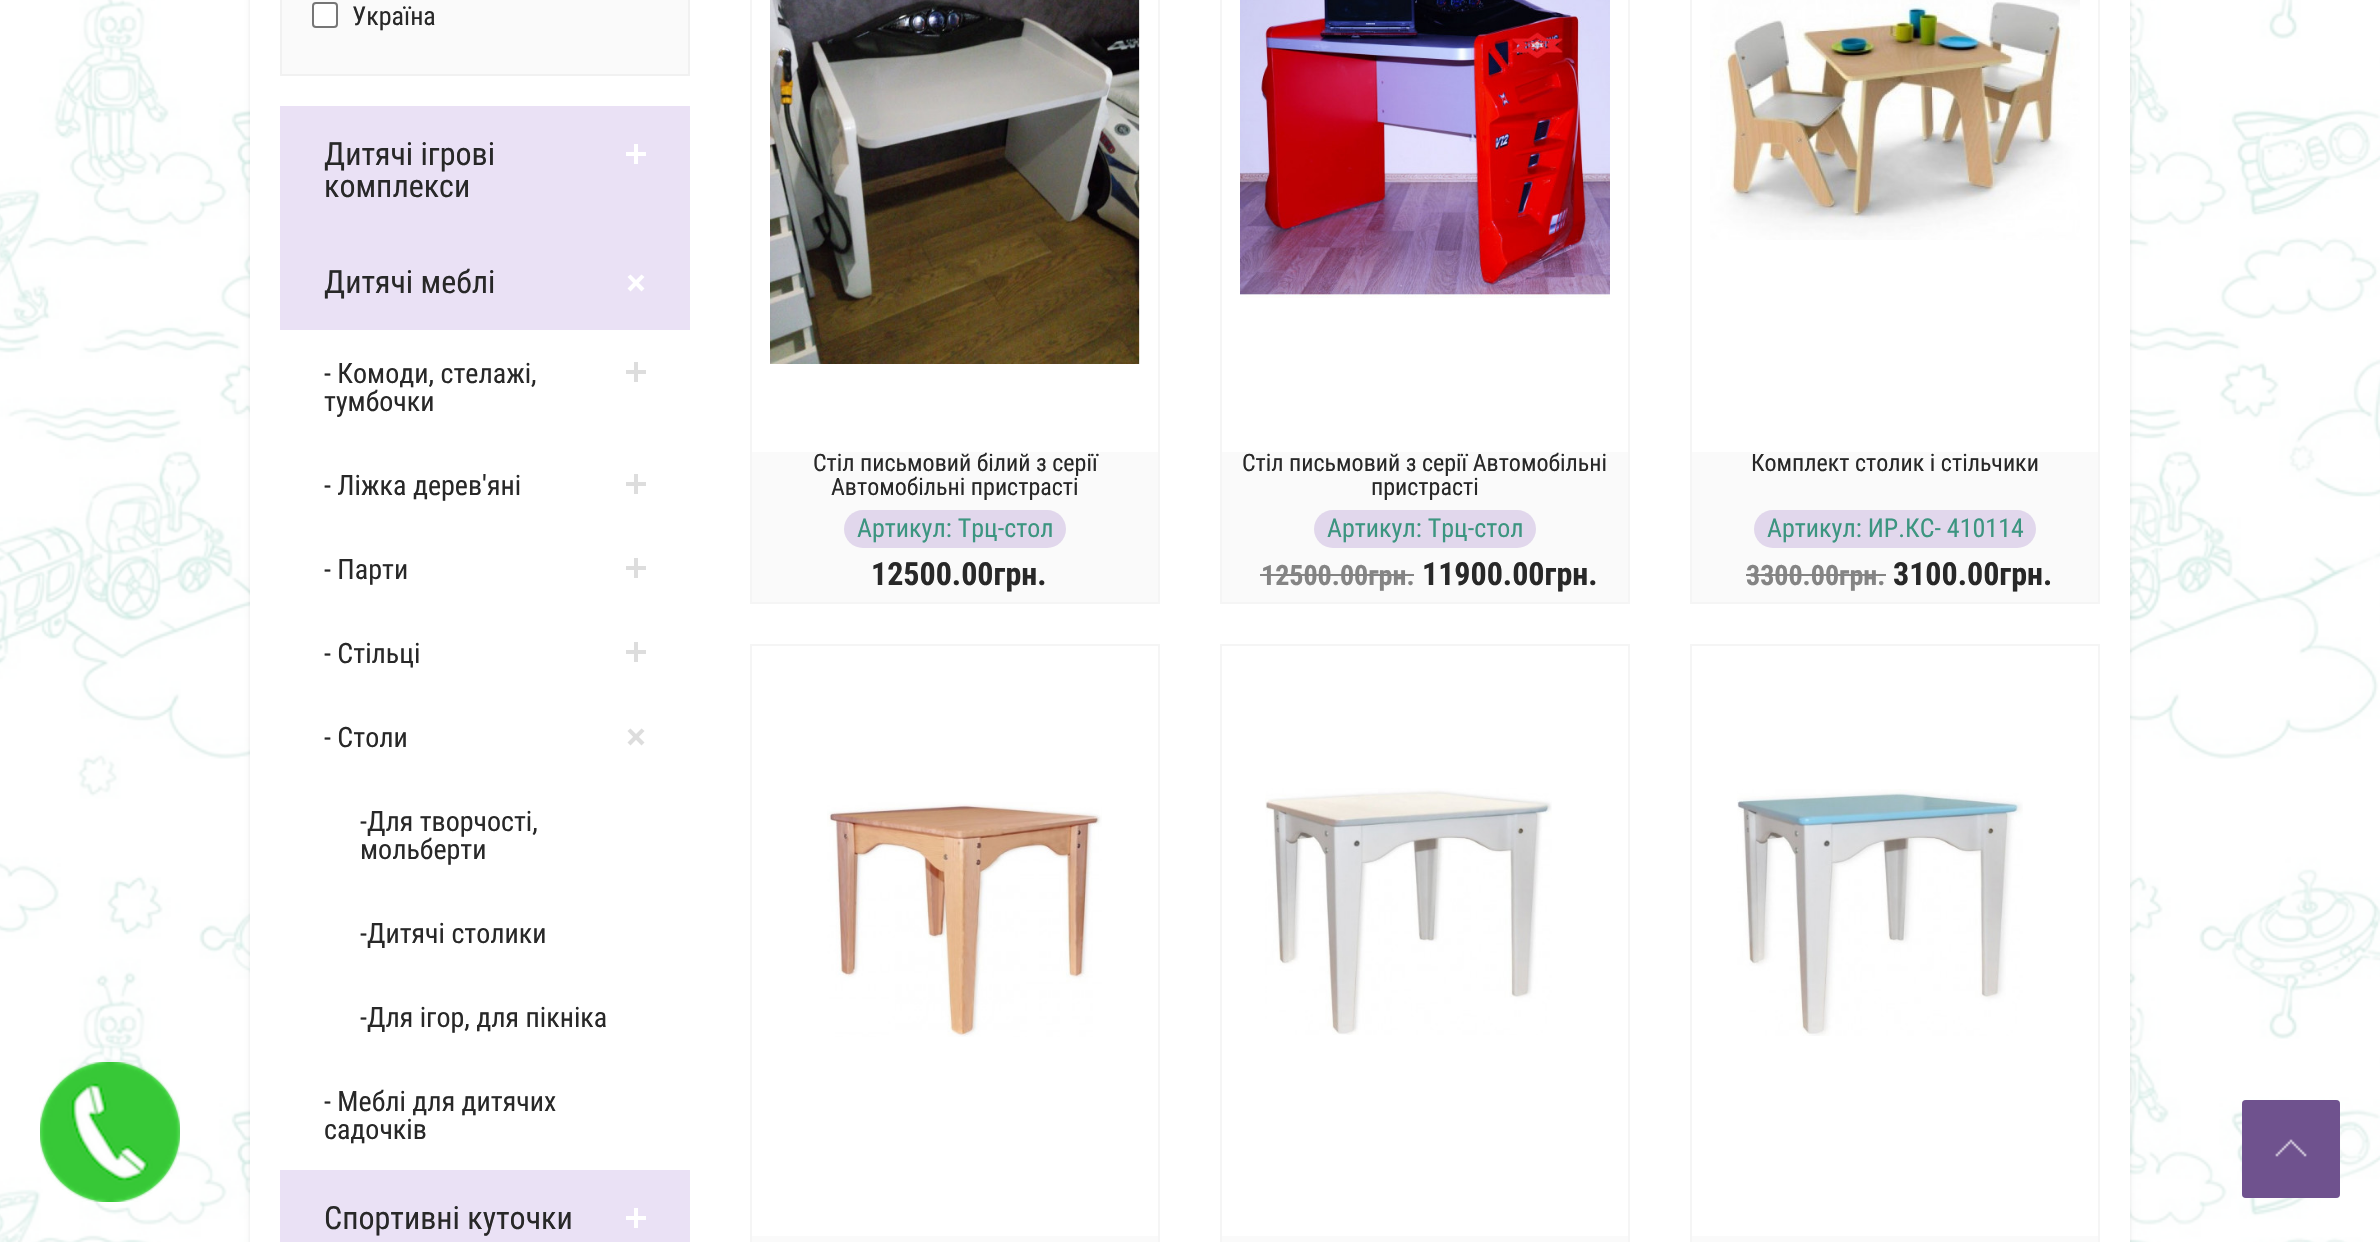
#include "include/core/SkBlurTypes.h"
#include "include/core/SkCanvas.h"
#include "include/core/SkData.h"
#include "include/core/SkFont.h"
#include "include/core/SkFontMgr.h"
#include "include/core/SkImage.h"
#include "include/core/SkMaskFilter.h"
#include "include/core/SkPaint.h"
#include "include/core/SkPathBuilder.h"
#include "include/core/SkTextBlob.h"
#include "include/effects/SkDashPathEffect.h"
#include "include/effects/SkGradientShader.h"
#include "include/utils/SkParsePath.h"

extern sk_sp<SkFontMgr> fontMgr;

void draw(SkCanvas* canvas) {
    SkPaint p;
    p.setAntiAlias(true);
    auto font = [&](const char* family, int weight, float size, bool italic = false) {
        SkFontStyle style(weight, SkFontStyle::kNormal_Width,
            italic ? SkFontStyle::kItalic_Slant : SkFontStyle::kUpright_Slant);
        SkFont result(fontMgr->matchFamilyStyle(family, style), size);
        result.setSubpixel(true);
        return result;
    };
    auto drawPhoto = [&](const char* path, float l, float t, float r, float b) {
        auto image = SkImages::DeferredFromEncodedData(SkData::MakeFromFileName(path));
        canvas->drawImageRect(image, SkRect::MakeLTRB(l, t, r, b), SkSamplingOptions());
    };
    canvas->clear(0xFFFFFFFF);
    drawPhoto("media/1.png", 0, 0, 2380, 1242);
    p.setColor(0x8037C837);
    canvas->drawCircle(110, 1132, 70, p);
    drawPhoto("media/2.png", 40, 1062, 180, 1202);
    p.setColor(0x1A000000);
    p.setMaskFilter(SkMaskFilter::MakeBlur(kNormal_SkBlurStyle, 2));
    canvas->drawRect(SkRect::MakeLTRB(250, -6, 2130, 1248), p);
    p.setMaskFilter(nullptr);
    p.setColor(0xFFFFFFFF);
    canvas->drawRect(SkRect::MakeLTRB(250, 0, 2130, 1242), p);
    p.setColor(0xFFFAFAFA);
    canvas->drawRect(SkRect::MakeLTRB(280, 0, 690, 76), p);
    p.setColor(0xFFF1F1F1);
    canvas->drawPath(SkPathBuilder().moveTo(690, -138).lineTo(690, 76).lineTo(688, 74).lineTo(688, -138).close().detach(), p);
    p.setColor(0x38D0D0D0);
    canvas->drawPath(SkPathBuilder().moveTo(690, 76).lineTo(280, 76).lineTo(282, 74).lineTo(688, 74).close().detach(), p);
    canvas->drawPath(SkPathBuilder().moveTo(280, 76).lineTo(280, -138).lineTo(282, -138).lineTo(282, 74).close().detach(), p);
    p.setColor(0xFFFFFFFF);
    canvas->drawRoundRect(SkRect::MakeLTRB(313, 3, 337, 27), 3, 3, p);
    p.setStyle(SkPaint::kStroke_Style);
    p.setStrokeWidth(2);
    p.setColor(0xFF767676);
    canvas->drawRoundRect(SkRect::MakeLTRB(313, 3, 337, 27), 3, 3, p);
    auto font1 = font("Roboto Condensed", 400, 26);
    p.setStyle(SkPaint::kFill_Style);
    p.setColor(0xFF282828);
    canvas->drawString("Україна", 352, 25, font1, p);
    p.setColor(0xFFEAE1F5);
    canvas->drawRect(SkRect::MakeLTRB(280, 106, 690, 330), p);
    auto font2 = font("Roboto Condensed", 400, 32);
    p.setColor(0xFF282828);
    canvas->drawString("Дитячі ігрові", 324, 165, font2, p);
    p.setColor(0xFFFFFFFF);
    canvas->drawRect(SkRect::MakeLTRB(626, 152, 646, 156), p);
    canvas->drawRect(SkRect::MakeLTRB(634, 144, 638, 164), p);
    p.setColor(0xFF282828);
    canvas->drawString("комплекси", 324, 197, font2, p);
    canvas->drawString("Дитячі меблі", 324, 293, font2, p);
    p.setColor(0xFFFFFFFF);
    canvas->drawPath(SkPathBuilder().moveTo(630.5f, 274.5f).lineTo(644.5f, 288.5f).lineTo(641.5f, 291.5f).lineTo(627.5f, 277).close().detach(), p);
    canvas->drawPath(SkPathBuilder().moveTo(641.5f, 274.5f).lineTo(644.5f, 277).lineTo(630.5f, 291.5f).lineTo(627.5f, 288.5f).close().detach(), p);
    auto font3 = font("Roboto Condensed", 400, 28);
    p.setColor(0xFF282828);
    canvas->drawString("- Комоди, стелажі,", 324, 383, font3, p);
    p.setColor(0xFFDDDDDD);
    canvas->drawRect(SkRect::MakeLTRB(626, 370, 646, 374), p);
    canvas->drawRect(SkRect::MakeLTRB(634, 362, 638, 382), p);
    p.setColor(0xFF282828);
    canvas->drawString("тумбочки", 324, 411, font3, p);
    canvas->drawString("- Ліжка дерев'яні", 324, 495, font3, p);
    p.setColor(0xFFDDDDDD);
    canvas->drawRect(SkRect::MakeLTRB(626, 482, 646, 486), p);
    canvas->drawRect(SkRect::MakeLTRB(634, 474, 638, 494), p);
    p.setColor(0xFF282828);
    canvas->drawString("- Парти", 324, 579, font3, p);
    p.setColor(0xFFDDDDDD);
    canvas->drawRect(SkRect::MakeLTRB(626, 566, 646, 570), p);
    canvas->drawRect(SkRect::MakeLTRB(634, 558, 638, 578), p);
    p.setColor(0xFF282828);
    canvas->drawString("- Стільці", 324, 663, font3, p);
    p.setColor(0xFFDDDDDD);
    canvas->drawRect(SkRect::MakeLTRB(626, 650, 646, 654), p);
    canvas->drawRect(SkRect::MakeLTRB(634, 642, 638, 662), p);
    p.setColor(0xFF282828);
    canvas->drawString("- Столи", 324, 747, font3, p);
    p.setColor(0xFFDDDDDD);
    canvas->drawPath(SkPathBuilder().moveTo(630.5f, 728.5f).lineTo(644.5f, 742.5f).lineTo(641.5f, 745.5f).lineTo(627.5f, 731).close().detach(), p);
    canvas->drawPath(SkPathBuilder().moveTo(641.5f, 728.5f).lineTo(644.5f, 731).lineTo(630.5f, 745.5f).lineTo(627.5f, 742.5f).close().detach(), p);
    p.setColor(0xFF282828);
    {
        const struct { const char* s; float x, y; } items[] = {
            {"-Для творчості,", 360, 831},
            {"мольберти", 360, 859},
            {"-Дитячі столики", 360, 943},
            {"-Для ігор, для пікніка", 360, 1027},
            {"- Меблі для дитячих", 324, 1111},
            {"садочків", 324, 1139},
        };
        for (auto [s, x, y] : items) {
            canvas->drawString(s, x, y, font3, p);
        }
    }
    p.setColor(0xFFEAE1F5);
    canvas->drawRect(SkRect::MakeLTRB(280, 1170, 690, 1242), p);
    p.setColor(0xFF282828);
    canvas->drawString("Спортивні куточки", 324, 1229, font2, p);
    p.setColor(0xFFFFFFFF);
    canvas->drawRect(SkRect::MakeLTRB(626, 1216, 646, 1220), p);
    canvas->drawRect(SkRect::MakeLTRB(634, 1208, 638, 1228), p);
    p.setStyle(SkPaint::kStroke_Style);
    p.setColor(0xFFF5F5F5);
    canvas->drawRect(SkRect::MakeLTRB(751, -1, 1159, 603), p);
    drawPhoto("media/3.png", 770, 0, 1140, 364);
    p.setStyle(SkPaint::kFill_Style);
    p.setColor(0xFFFAFAFA);
    canvas->drawRect(SkRect::MakeLTRB(752, 452, 1158, 602), p);
    auto font4 = font("Roboto Condensed", 400, 24);
    p.setColor(0xFF282828);
    canvas->drawString("Стіл письмовий білий з серії", 813, 471, font4, p);
    canvas->drawString("Автомобільні пристрасті", 831, 495, font4, p);
    p.setColor(0xFFE1D7EC);
    canvas->drawRoundRect(SkRect::MakeLTRB(844, 510, 1066, 548), 19, 19, p);
    p.setColor(0xFF3C9580);
    canvas->drawString("Артикул: Трц-стол", 857, 537, font1, p);
    auto font5 = font("Roboto Condensed", 700, 32);
    p.setColor(0xFF282828);
    canvas->drawString("12500.00грн.", 871, 585, font5, p);
    p.setStyle(SkPaint::kStroke_Style);
    p.setColor(0xFFF5F5F5);
    canvas->drawRect(SkRect::MakeLTRB(1221, -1, 1629, 603), p);
    drawPhoto("media/4.png", 1240, 0, 1610, 298);
    p.setStyle(SkPaint::kFill_Style);
    p.setColor(0xFFFAFAFA);
    canvas->drawRect(SkRect::MakeLTRB(1222, 452, 1628, 602), p);
    p.setColor(0xFF282828);
    canvas->drawString("Стіл письмовий з серії Автомобільні", 1242, 471, font4, p);
    canvas->drawString("пристрасті", 1371, 495, font4, p);
    p.setColor(0xFFE1D7EC);
    canvas->drawRoundRect(SkRect::MakeLTRB(1314, 510, 1536, 548), 19, 19, p);
    p.setColor(0xFF3C9580);
    canvas->drawString("Артикул: Трц-стол", 1327, 537, font1, p);
    auto font6 = font("Roboto Condensed", 700, 28);
    p.setColor(0xFF848484);
    canvas->drawString("12500.00грн.", 1261, 585, font6, p);
    canvas->drawRect(SkRect::MakeLTRB(1260, 574, 1414, 576), p);
    p.setColor(0xFF282828);
    canvas->drawString("11900.00грн.", 1422, 585, font5, p);
    p.setStyle(SkPaint::kStroke_Style);
    p.setColor(0xFFF5F5F5);
    canvas->drawRect(SkRect::MakeLTRB(1691, -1, 2099, 603), p);
    drawPhoto("media/5.png", 1710, 0, 2080, 240);
    p.setStyle(SkPaint::kFill_Style);
    p.setColor(0xFFFAFAFA);
    canvas->drawRect(SkRect::MakeLTRB(1692, 452, 2098, 602), p);
    p.setColor(0xFF282828);
    canvas->drawString("Комплект столик і стільчики", 1751, 471, font4, p);
    p.setColor(0xFFE1D7EC);
    canvas->drawRoundRect(SkRect::MakeLTRB(1754, 510, 2036, 548), 19, 19, p);
    p.setColor(0xFF3C9580);
    canvas->drawString("Артикул: ИР.КС- 410114", 1767, 537, font1, p);
    p.setColor(0xFF848484);
    canvas->drawString("3300.00грн.", 1746, 585, font6, p);
    canvas->drawRect(SkRect::MakeLTRB(1746, 574, 1886, 576), p);
    p.setColor(0xFF282828);
    canvas->drawString("3100.00грн.", 1893, 585, font5, p);
    p.setStyle(SkPaint::kStroke_Style);
    p.setColor(0xFFF5F5F5);
    canvas->drawRect(SkRect::MakeLTRB(751, 645, 1159, 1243), p);
    drawPhoto("media/6.png", 827, 802, 1102, 1037);
    p.setStyle(SkPaint::kFill_Style);
    p.setColor(0xFFFAFAFA);
    canvas->drawRect(SkRect::MakeLTRB(752, 1236, 1158, 1242), p);
    p.setStyle(SkPaint::kStroke_Style);
    p.setColor(0xFFF5F5F5);
    canvas->drawRect(SkRect::MakeLTRB(1221, 645, 1629, 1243), p);
    drawPhoto("media/7.png", 1265, 788, 1552, 1035);
    p.setStyle(SkPaint::kFill_Style);
    p.setColor(0xFFFAFAFA);
    canvas->drawRect(SkRect::MakeLTRB(1222, 1236, 1628, 1242), p);
    p.setStyle(SkPaint::kStroke_Style);
    p.setColor(0xFFF5F5F5);
    canvas->drawRect(SkRect::MakeLTRB(1691, 645, 2099, 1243), p);
    drawPhoto("media/8.png", 1737, 789, 2023, 1036);
    p.setStyle(SkPaint::kFill_Style);
    p.setColor(0xFFFAFAFA);
    canvas->drawRect(SkRect::MakeLTRB(1692, 1236, 2098, 1242), p);
    p.setColor(0xFF4B2672);
    canvas->drawRoundRect(SkRect::MakeLTRB(2242, 1100, 2340, 1198), 4, 4, p);
    drawPhoto("media/9.png", 2242, 1100, 2340, 1198);
}
